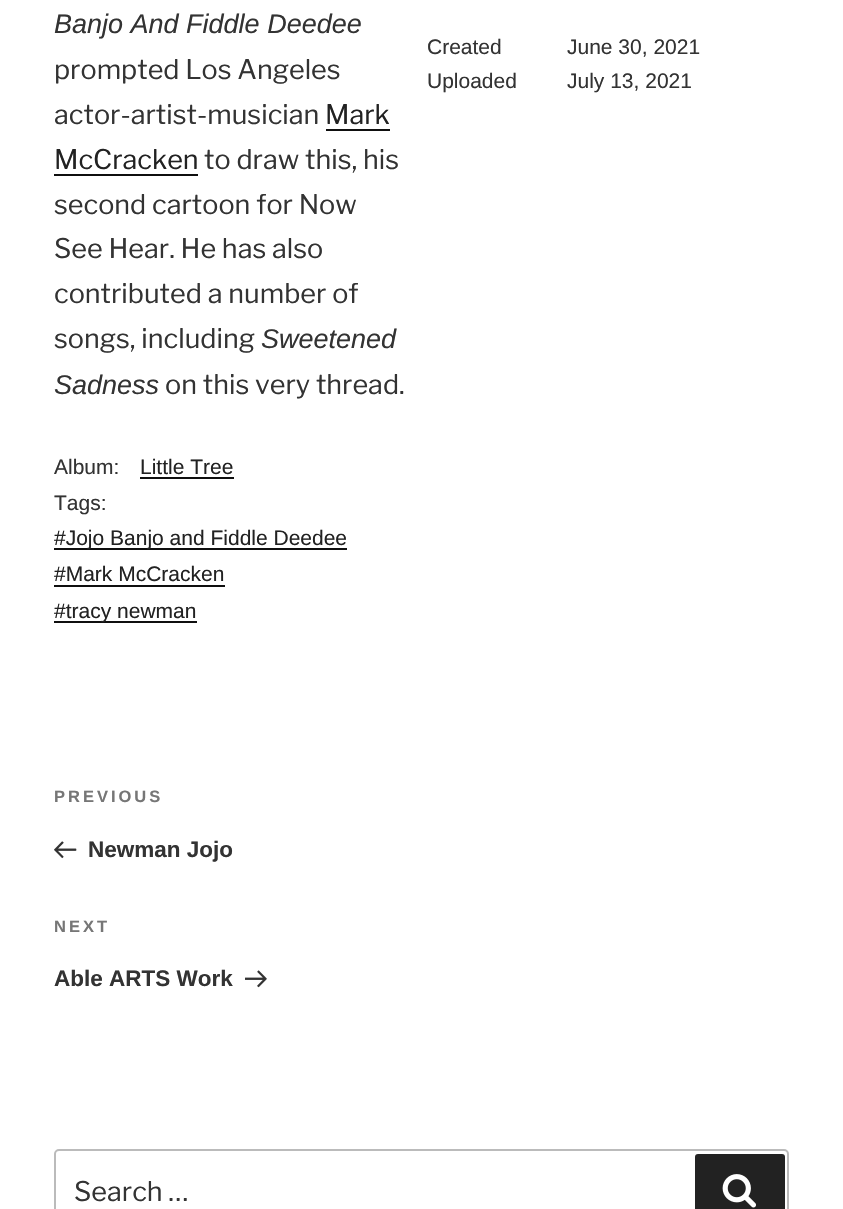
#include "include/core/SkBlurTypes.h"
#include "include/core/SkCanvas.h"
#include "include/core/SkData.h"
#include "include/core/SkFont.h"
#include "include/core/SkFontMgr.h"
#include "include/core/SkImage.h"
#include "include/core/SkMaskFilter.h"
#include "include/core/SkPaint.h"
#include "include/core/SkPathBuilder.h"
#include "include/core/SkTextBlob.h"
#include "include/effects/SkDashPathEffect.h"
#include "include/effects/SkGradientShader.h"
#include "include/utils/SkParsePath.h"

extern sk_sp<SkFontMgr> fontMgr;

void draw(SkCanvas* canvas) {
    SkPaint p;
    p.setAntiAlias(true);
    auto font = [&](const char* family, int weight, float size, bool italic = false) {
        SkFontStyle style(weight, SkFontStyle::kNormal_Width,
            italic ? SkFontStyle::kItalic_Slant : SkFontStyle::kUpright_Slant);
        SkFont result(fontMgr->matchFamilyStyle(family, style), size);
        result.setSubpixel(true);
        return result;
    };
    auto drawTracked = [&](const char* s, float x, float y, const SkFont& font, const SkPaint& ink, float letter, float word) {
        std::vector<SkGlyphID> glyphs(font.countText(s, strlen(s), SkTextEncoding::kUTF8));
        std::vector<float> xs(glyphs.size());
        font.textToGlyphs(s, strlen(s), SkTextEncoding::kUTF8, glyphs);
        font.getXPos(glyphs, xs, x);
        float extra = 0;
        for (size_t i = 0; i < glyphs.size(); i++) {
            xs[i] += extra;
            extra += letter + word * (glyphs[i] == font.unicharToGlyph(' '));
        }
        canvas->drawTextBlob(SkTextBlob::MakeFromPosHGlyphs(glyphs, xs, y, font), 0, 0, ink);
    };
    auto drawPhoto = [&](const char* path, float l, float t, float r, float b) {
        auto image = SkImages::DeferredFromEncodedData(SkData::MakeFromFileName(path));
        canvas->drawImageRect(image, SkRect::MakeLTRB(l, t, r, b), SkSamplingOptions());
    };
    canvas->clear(0xFFFFFFFF);
    auto font1 = font("Liberation Sans", 400, 27, true);
    p.setColor(0xFF333333);
    canvas->drawString("Banjo And Fiddle Deedee", 54, 33, font1, p);
    auto font2 = font("Libre Franklin", 100, 27);
    canvas->drawString("prompted Los Angeles", 54, 79, font2, p);
    canvas->drawString("actor-artist-musician", 54, 124, font2, p);
    p.setColor(0xFF222222);
    canvas->drawString("Mark", 325, 124, font2, p);
    p.setColor(0xFF0F0F0F);
    canvas->drawRect(SkRect::MakeLTRB(326, 129, 390, 131), p);
    p.setColor(0xFF222222);
    canvas->drawString("McCracken", 54, 169, font2, p);
    p.setColor(0xFF0F0F0F);
    canvas->drawRect(SkRect::MakeLTRB(54, 174, 198, 176), p);
    p.setColor(0xFF333333);
    {
        const struct { const char* s; float x, y; } items[] = {
            {"to draw this, his", 204, 169},
            {"second cartoon for Now", 54, 214},
            {"See Hear. He has also", 54, 258},
            {"contributed a number of", 54, 303},
            {"songs, including", 54, 348},
        };
        for (auto [s, x, y] : items) {
            canvas->drawString(s, x, y, font2, p);
        }
    }
    canvas->drawString("Sweetened", 261, 348, font1, p);
    canvas->drawString("Sadness", 54, 394, font1, p);
    canvas->drawString("on this very thread.", 165, 394, font2, p);
    auto font3 = font("Liberation Sans", 400, 21);
    canvas->drawString("Album:", 54, 474, font3, p);
    p.setColor(0xFF222222);
    canvas->drawString("Little Tree", 140, 474, font3, p);
    p.setColor(0xFF0F0F0F);
    canvas->drawRect(SkRect::MakeLTRB(140, 477, 234, 479), p);
    p.setColor(0xFF333333);
    canvas->drawString("Tags:", 54, 510, font3, p);
    p.setColor(0xFF0F0F0F);
    canvas->drawRect(SkRect::MakeLTRB(54, 548, 347, 550), p);
    p.setColor(0xFF222222);
    canvas->drawString("#Jojo Banjo and Fiddle Deedee", 54, 545, font3, p);
    canvas->drawString("#Mark McCracken", 54, 581, font3, p);
    p.setColor(0xFF0F0F0F);
    canvas->drawRect(SkRect::MakeLTRB(54, 585, 225, 587), p);
    canvas->drawRect(SkRect::MakeLTRB(54, 621, 197, 623), p);
    p.setColor(0xFF222222);
    canvas->drawString("#tracy newman", 54, 618, font3, p);
    p.setColor(0xFF333333);
    {
        const struct { const char* s; float x, y; } items[] = {
            {"Created", 427, 54},
            {"June 30, 2021", 567, 54},
            {"Uploaded", 427, 88},
            {"July 13, 2021", 567, 88},
        };
        for (auto [s, x, y] : items) {
            canvas->drawString(s, x, y, font3, p);
        }
    }
    auto font4 = font("Liberation Sans", 700, 16.5f);
    p.setColor(0xFF767676);
    drawTracked("PREVIOUS", 54, 802, font4, p, 3, 0);
    drawPhoto("media/1.png", 54, 841, 77, 859);
    auto font5 = font("Liberation Sans", 700, 22.5f);
    p.setColor(0xFF333333);
    canvas->drawString("Newman Jojo", 88, 857, font5, p);
    p.setColor(0xFF767676);
    drawTracked("NEXT", 54, 932, font4, p, 3, 0);
    p.setColor(0xFF333333);
    canvas->drawString("Able ARTS Work", 54, 986, font5, p);
    drawPhoto("media/2.png", 245, 970, 267, 988);
    p.setStyle(SkPaint::kStroke_Style);
    p.setStrokeWidth(2);
    p.setColor(0xFFBBBBBB);
    canvas->drawRoundRect(SkRect::MakeLTRB(55, 1150, 788, 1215), 4, 4, p);
    p.setStyle(SkPaint::kFill_Style);
    p.setColor(0xFF333333);
    canvas->drawString("Search …", 74, 1201, font2, p);
    p.setColor(0xFF222222);
    canvas->drawRoundRect(SkRect::MakeLTRB(695, 1154, 785, 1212), 3, 3, p);
    drawPhoto("media/3.png", 722, 1174, 756, 1208);
}
